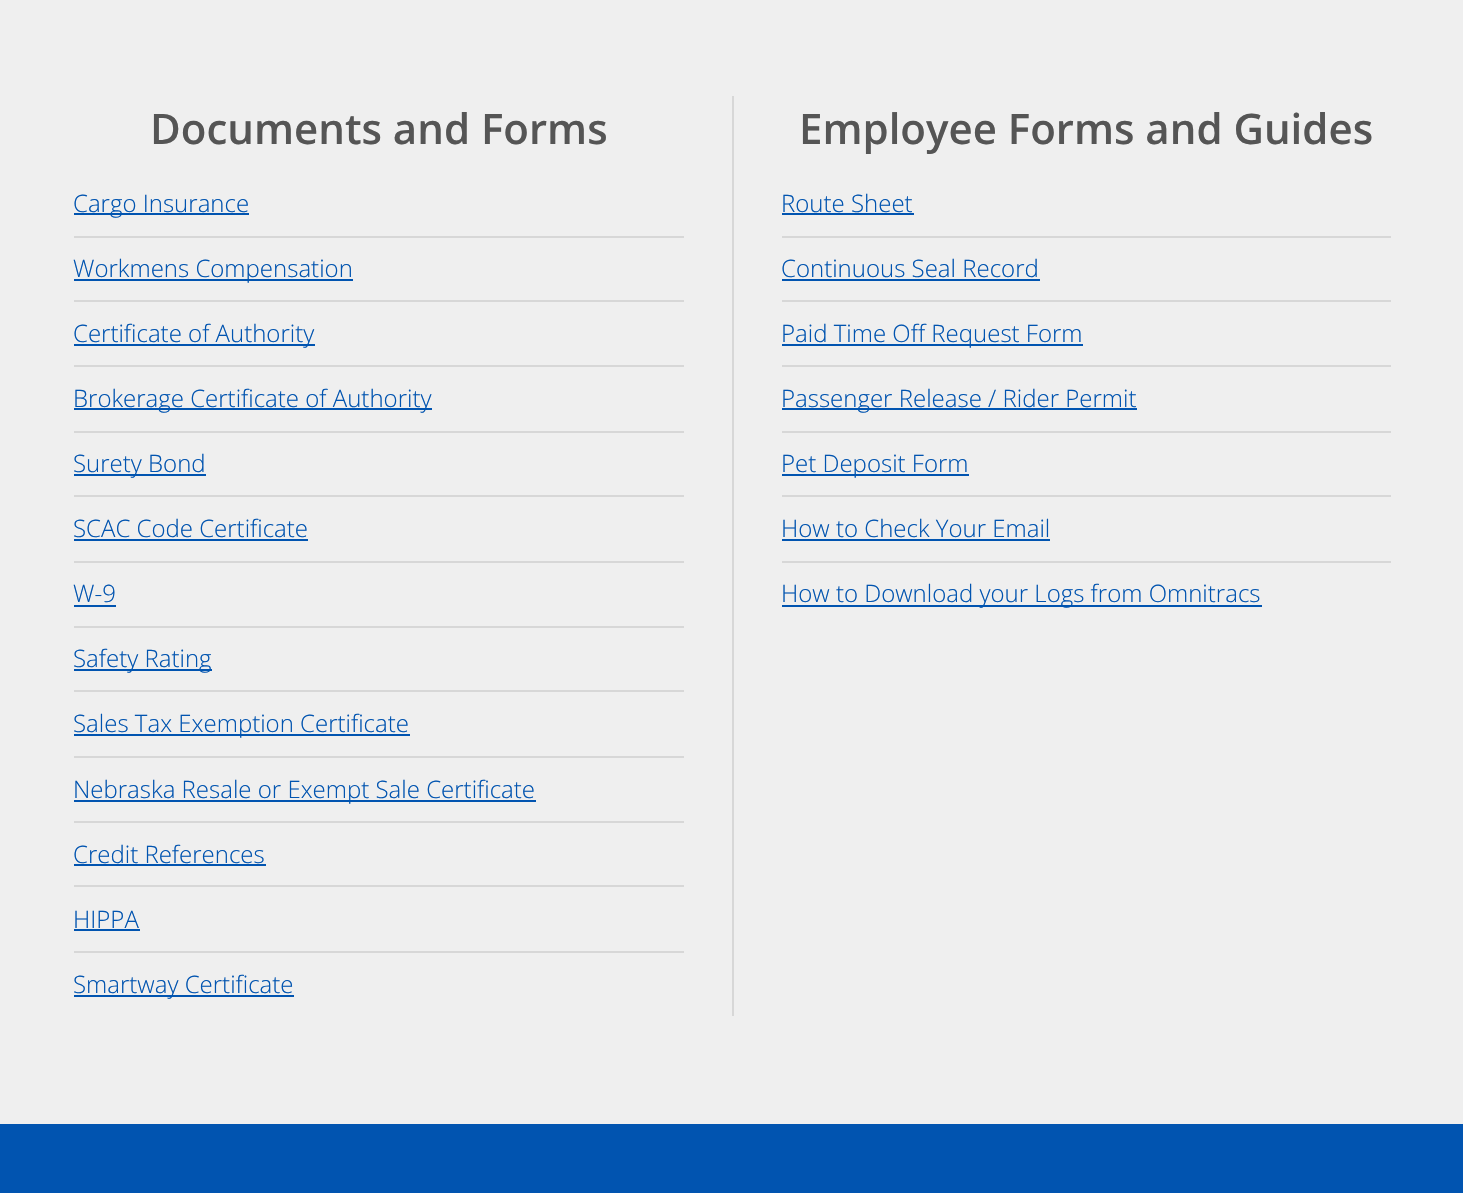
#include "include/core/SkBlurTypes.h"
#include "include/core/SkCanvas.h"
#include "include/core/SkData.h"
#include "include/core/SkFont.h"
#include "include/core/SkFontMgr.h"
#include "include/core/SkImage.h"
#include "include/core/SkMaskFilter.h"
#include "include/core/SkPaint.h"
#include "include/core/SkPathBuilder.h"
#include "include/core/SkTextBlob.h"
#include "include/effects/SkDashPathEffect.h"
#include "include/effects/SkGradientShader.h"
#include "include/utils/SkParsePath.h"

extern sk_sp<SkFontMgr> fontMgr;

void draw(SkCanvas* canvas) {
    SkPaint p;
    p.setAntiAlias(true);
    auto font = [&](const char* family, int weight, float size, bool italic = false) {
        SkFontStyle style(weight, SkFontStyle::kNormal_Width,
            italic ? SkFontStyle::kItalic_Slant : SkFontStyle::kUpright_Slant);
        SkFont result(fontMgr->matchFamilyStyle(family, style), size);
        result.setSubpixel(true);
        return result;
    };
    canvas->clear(0xFF0154B0);
    p.setColor(0xFFEFEFEF);
    canvas->drawRect(SkRect::MakeLTRB(0, 0, 1463, 1124), p);
    auto font1 = font("Open Sans", 600, 42);
    p.setColor(0xFF555555);
    canvas->drawString("Documents and Forms", 150, 144, font1, p);
    p.setColor(0xFF0154B0);
    canvas->drawRect(SkRect::MakeLTRB(74, 213, 249, 215), p);
    auto font2 = font("Open Sans", 300, 24);
    canvas->drawString("Cargo Insurance", 73, 212, font2, p);
    p.setColor(0xFFD7D7D7);
    canvas->drawRect(SkRect::MakeLTRB(74, 236, 684, 238), p);
    p.setColor(0xFF0154B0);
    canvas->drawRect(SkRect::MakeLTRB(74, 279, 353, 281), p);
    canvas->drawString("Workmens Compensation", 73, 277, font2, p);
    p.setColor(0xFFD7D7D7);
    canvas->drawRect(SkRect::MakeLTRB(74, 300, 684, 302), p);
    p.setColor(0xFF0154B0);
    canvas->drawRect(SkRect::MakeLTRB(74, 344, 315, 346), p);
    canvas->drawString("Certificate of Authority", 73, 342, font2, p);
    p.setColor(0xFFD7D7D7);
    canvas->drawRect(SkRect::MakeLTRB(74, 365, 684, 367), p);
    p.setColor(0xFF0154B0);
    canvas->drawRect(SkRect::MakeLTRB(74, 408, 432, 410), p);
    canvas->drawString("Brokerage Certificate of Authority", 73, 407, font2, p);
    p.setColor(0xFFD7D7D7);
    canvas->drawRect(SkRect::MakeLTRB(74, 431, 684, 433), p);
    p.setColor(0xFF0154B0);
    canvas->drawRect(SkRect::MakeLTRB(74, 474, 206, 476), p);
    canvas->drawString("Surety Bond", 73, 472, font2, p);
    p.setColor(0xFFD7D7D7);
    canvas->drawRect(SkRect::MakeLTRB(74, 495, 684, 497), p);
    p.setColor(0xFF0154B0);
    canvas->drawString("SCAC Code Certificate", 73, 537, font2, p);
    canvas->drawRect(SkRect::MakeLTRB(74, 539, 308, 541), p);
    p.setColor(0xFFD7D7D7);
    canvas->drawRect(SkRect::MakeLTRB(74, 561, 684, 563), p);
    p.setColor(0xFF0154B0);
    canvas->drawString("W-9", 73, 602, font2, p);
    {
        const struct { float l, t, r, b; SkColor color; } items[] = {
            {74, 605, 116, 607, 0xFF0154B0},
            {74, 626, 684, 628, 0xFFD7D7D7},
            {74, 669, 212, 671, 0xFF0154B0},
        };
        for (auto [l, t, r, b, color] : items) {
            p.setColor(color);
            canvas->drawRect(SkRect::MakeLTRB(l, t, r, b), p);
        }
    }
    canvas->drawString("Safety Rating", 73, 667, font2, p);
    p.setColor(0xFFD7D7D7);
    canvas->drawRect(SkRect::MakeLTRB(74, 690, 684, 692), p);
    p.setColor(0xFF0154B0);
    canvas->drawRect(SkRect::MakeLTRB(74, 734, 410, 736), p);
    canvas->drawString("Sales Tax Exemption Certificate", 73, 732, font2, p);
    p.setColor(0xFFD7D7D7);
    canvas->drawRect(SkRect::MakeLTRB(74, 756, 684, 758), p);
    p.setColor(0xFF0154B0);
    canvas->drawRect(SkRect::MakeLTRB(74, 800, 536, 802), p);
    canvas->drawString("Nebraska Resale or Exempt Sale Certificate", 73, 798, font2, p);
    p.setColor(0xFFD7D7D7);
    canvas->drawRect(SkRect::MakeLTRB(74, 821, 684, 823), p);
    p.setColor(0xFF0154B0);
    canvas->drawString("Credit References", 73, 863, font2, p);
    canvas->drawRect(SkRect::MakeLTRB(74, 864, 266, 866), p);
    p.setColor(0xFFD7D7D7);
    canvas->drawRect(SkRect::MakeLTRB(74, 885, 684, 887), p);
    p.setColor(0xFF0154B0);
    canvas->drawString("HIPPA", 73, 928, font2, p);
    {
        const struct { float l, t, r, b; SkColor color; } items[] = {
            {74, 929, 140, 931, 0xFF0154B0},
            {74, 951, 684, 953, 0xFFD7D7D7},
            {74, 995, 294, 997, 0xFF0154B0},
        };
        for (auto [l, t, r, b, color] : items) {
            p.setColor(color);
            canvas->drawRect(SkRect::MakeLTRB(l, t, r, b), p);
        }
    }
    canvas->drawString("Smartway Certificate", 73, 993, font2, p);
    p.setColor(0xFFD7D7D7);
    canvas->drawRect(SkRect::MakeLTRB(732, 96, 734, 1016), p);
    p.setColor(0xFF555555);
    canvas->drawString("Employee Forms and Guides", 799, 144, font1, p);
    p.setColor(0xFF0154B0);
    canvas->drawString("Route Sheet", 781, 212, font2, p);
    canvas->drawRect(SkRect::MakeLTRB(782, 213, 914, 215), p);
    p.setColor(0xFFD7D7D7);
    canvas->drawRect(SkRect::MakeLTRB(782, 236, 1391, 238), p);
    p.setColor(0xFF0154B0);
    canvas->drawString("Continuous Seal Record", 781, 277, font2, p);
    {
        const struct { float l, t, r, b; SkColor color; } items[] = {
            {782, 279, 1040, 281, 0xFF0154B0},
            {782, 300, 1391, 302, 0xFFD7D7D7},
            {782, 344, 1083, 346, 0xFF0154B0},
        };
        for (auto [l, t, r, b, color] : items) {
            p.setColor(color);
            canvas->drawRect(SkRect::MakeLTRB(l, t, r, b), p);
        }
    }
    canvas->drawString("Paid Time Off Request Form", 781, 342, font2, p);
    p.setColor(0xFFD7D7D7);
    canvas->drawRect(SkRect::MakeLTRB(782, 365, 1391, 367), p);
    p.setColor(0xFF0154B0);
    canvas->drawRect(SkRect::MakeLTRB(782, 408, 1137, 410), p);
    canvas->drawString("Passenger Release / Rider Permit", 781, 407, font2, p);
    p.setColor(0xFFD7D7D7);
    canvas->drawRect(SkRect::MakeLTRB(782, 431, 1391, 433), p);
    p.setColor(0xFF0154B0);
    canvas->drawRect(SkRect::MakeLTRB(782, 474, 969, 476), p);
    canvas->drawString("Pet Deposit Form", 781, 472, font2, p);
    p.setColor(0xFFD7D7D7);
    canvas->drawRect(SkRect::MakeLTRB(782, 495, 1391, 497), p);
    p.setColor(0xFF0154B0);
    canvas->drawString("How to Check Your Email", 781, 537, font2, p);
    {
        const struct { float l, t, r, b; SkColor color; } items[] = {
            {782, 539, 1050, 541, 0xFF0154B0},
            {782, 561, 1391, 563, 0xFFD7D7D7},
            {782, 605, 1262, 607, 0xFF0154B0},
        };
        for (auto [l, t, r, b, color] : items) {
            p.setColor(color);
            canvas->drawRect(SkRect::MakeLTRB(l, t, r, b), p);
        }
    }
    canvas->drawString("How to Download your Logs from Omnitracs", 781, 602, font2, p);
}
